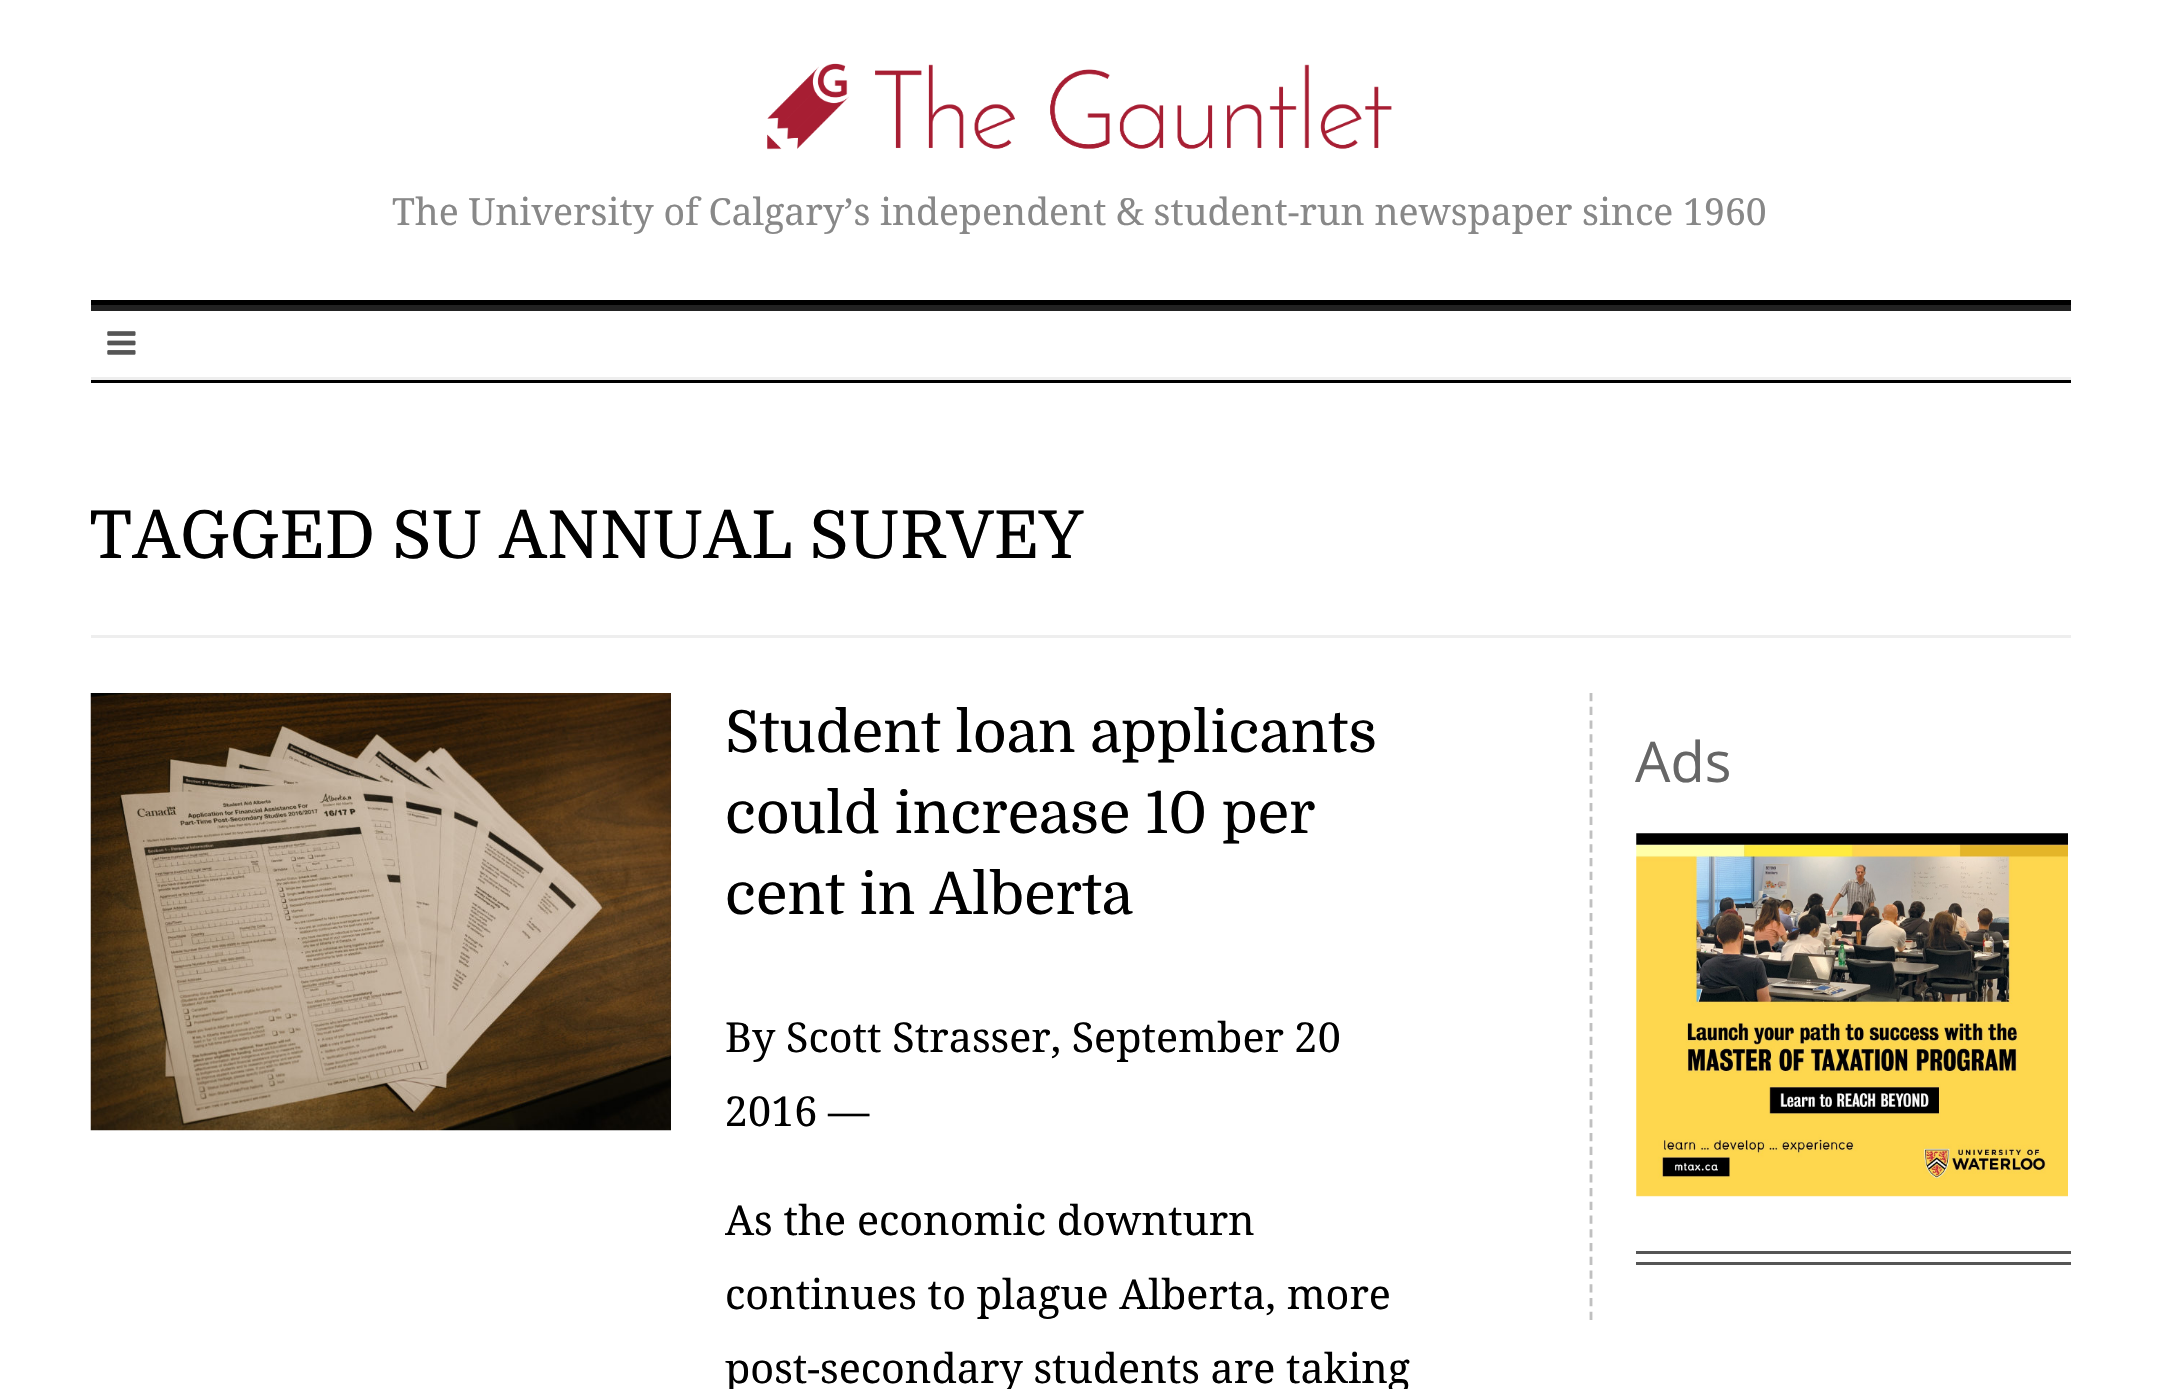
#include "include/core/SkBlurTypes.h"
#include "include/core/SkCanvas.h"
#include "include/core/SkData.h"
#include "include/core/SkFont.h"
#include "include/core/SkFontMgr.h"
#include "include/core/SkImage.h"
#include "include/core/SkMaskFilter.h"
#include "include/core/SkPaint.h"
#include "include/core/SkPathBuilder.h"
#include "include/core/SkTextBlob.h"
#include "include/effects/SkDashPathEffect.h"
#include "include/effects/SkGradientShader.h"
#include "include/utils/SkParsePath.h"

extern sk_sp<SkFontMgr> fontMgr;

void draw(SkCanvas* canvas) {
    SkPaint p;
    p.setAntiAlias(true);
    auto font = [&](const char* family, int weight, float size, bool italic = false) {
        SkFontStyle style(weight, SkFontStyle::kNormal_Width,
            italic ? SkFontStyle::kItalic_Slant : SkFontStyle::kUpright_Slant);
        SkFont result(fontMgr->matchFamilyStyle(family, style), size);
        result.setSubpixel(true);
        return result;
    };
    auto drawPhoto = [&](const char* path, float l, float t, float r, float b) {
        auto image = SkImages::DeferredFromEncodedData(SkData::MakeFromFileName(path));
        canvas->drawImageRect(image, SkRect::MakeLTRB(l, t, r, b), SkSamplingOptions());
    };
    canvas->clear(0xFFFFFFFF);
    p.setColor(0xFF000000);
    canvas->drawRect(SkRect::MakeLTRB(91, 300, 2071, 305), p);
    drawPhoto("media/1.png", 767, 63, 1392, 150);
    auto font1 = font("Droid Serif", 400, 37.4f);
    p.setColor(0xFF888888);
    canvas->drawString("The University of Calgary’s independent & student-run newspaper since 1960", 392, 225, font1, p);
    {
        const struct { float l, t, r, b; SkColor color; } items[] = {
            {91, 380, 2071, 383, 0xFF000000},
            {91, 305, 2071, 311, 0xFF222222},
            {91, 377, 2071, 380, 0xFFEEEEEE},
        };
        for (auto [l, t, r, b, color] : items) {
            p.setColor(color);
            canvas->drawRect(SkRect::MakeLTRB(l, t, r, b), p);
        }
    }
    drawPhoto("media/2.png", 107, 331, 136, 355);
    auto font2 = font("Domine", 400, 66);
    p.setColor(0xFF000000);
    canvas->drawString("TAGGED SU ANNUAL SURVEY", 89, 558, font2, p);
    p.setColor(0xFFEEEEEE);
    canvas->drawRect(SkRect::MakeLTRB(91, 635, 2071, 638), p);
    drawPhoto("media/3.png", 90, 693, 671, 1131);
    auto font3 = font("Domine", 400, 57.75f);
    p.setColor(0xFF000000);
    {
        const struct { const char* s; float x, y; } items[] = {
            {"Student loan applicants", 725, 752},
            {"could increase 10 per", 725, 833},
            {"cent in Alberta", 725, 914},
        };
        for (auto [s, x, y] : items) {
            canvas->drawString(s, x, y, font3, p);
        }
    }
    auto font4 = font("Droid Serif", 400, 41.25f);
    {
        const struct { const char* s; float x, y; } items[] = {
            {"By Scott Strasser, September 20", 725, 1052},
            {"2016 —", 725, 1126},
            {"As the economic downturn", 725, 1235},
            {"continues to plague Alberta, more", 725, 1309},
            {"post-secondary students are taking", 725, 1383},
        };
        for (auto [s, x, y] : items) {
            canvas->drawString(s, x, y, font4, p);
        }
    }
    p.setStyle(SkPaint::kStroke_Style);
    p.setStrokeWidth(2.8f);
    p.setColor(0xFFC0C0C0);
    p.setPathEffect(SkDashPathEffect::Make({{8.25f, 5.5f}}, 0));
    canvas->drawPath(SkPathBuilder().moveTo(1591, 693).lineTo(1591, 1320).detach(), p);
    p.setPathEffect(nullptr);
    auto font5 = font("Open Sans", 400, 56);
    p.setStyle(SkPaint::kFill_Style);
    p.setColor(0xFF666666);
    canvas->drawString("Ads", 1635, 782, font5, p);
    drawPhoto("media/4.png", 1636, 833, 2068, 1197);
    p.setColor(0xFF555555);
    canvas->drawRect(SkRect::MakeLTRB(1636, 1251, 2071, 1254), p);
    canvas->drawRect(SkRect::MakeLTRB(1636, 1262, 2071, 1265), p);
}
